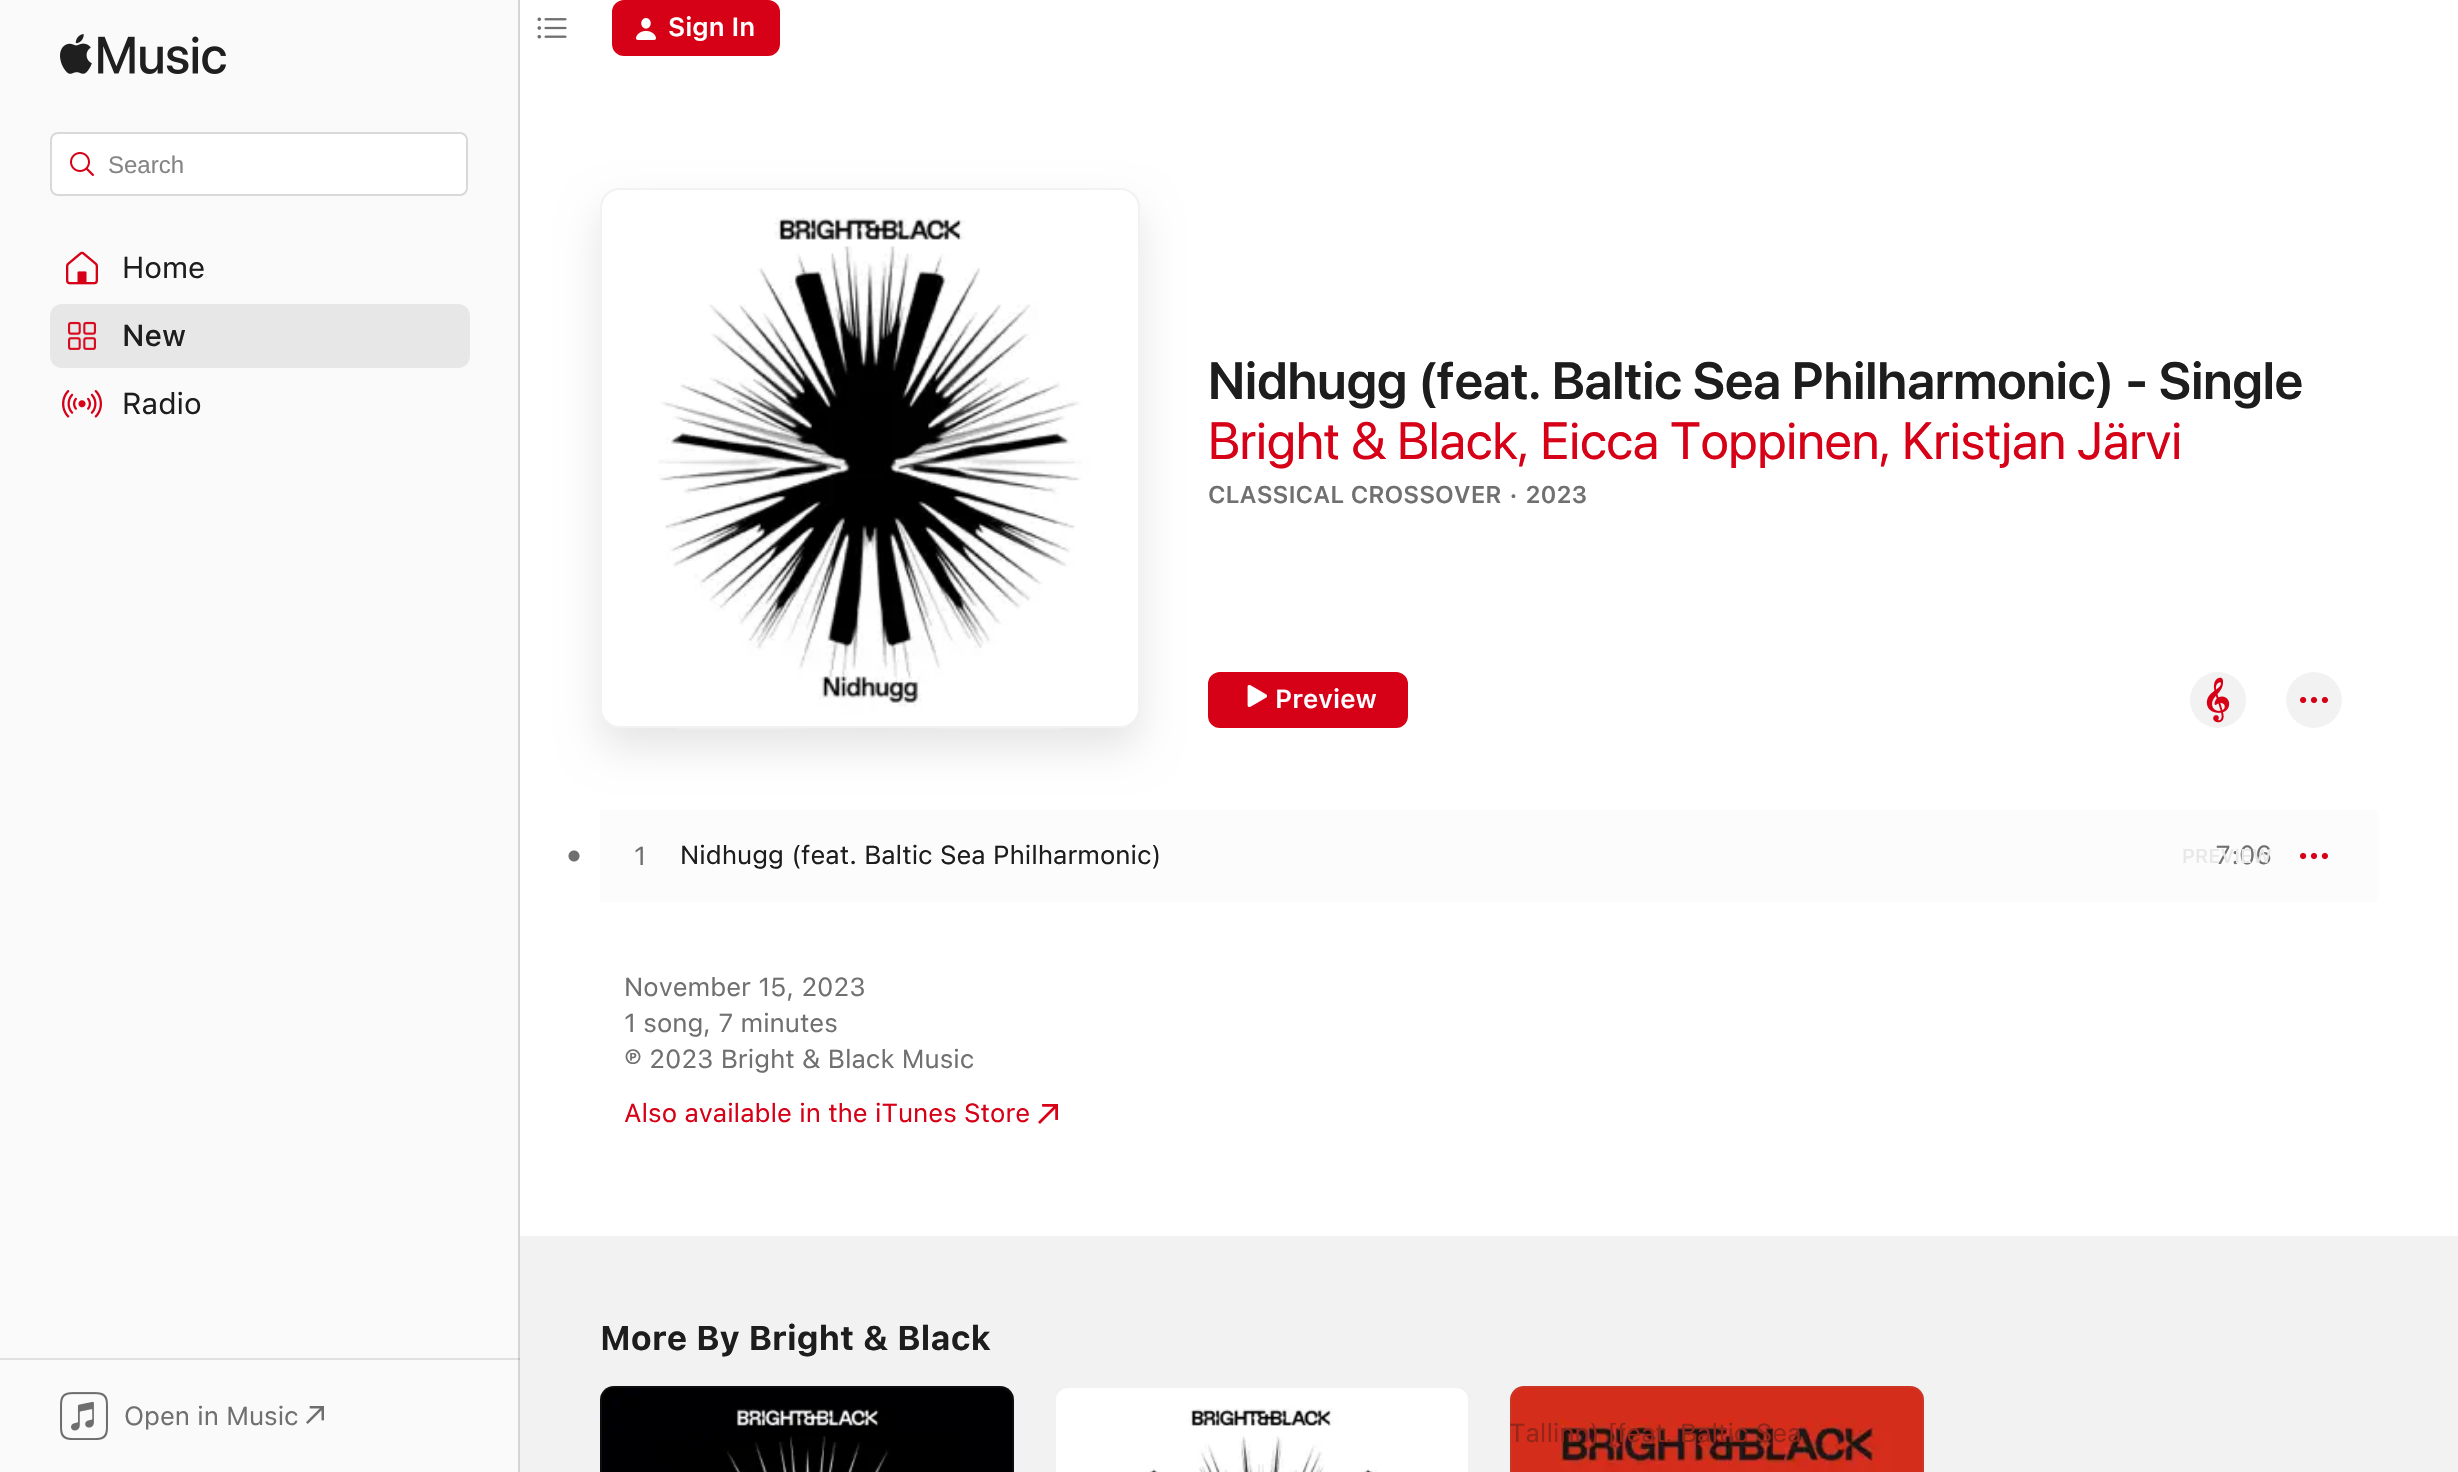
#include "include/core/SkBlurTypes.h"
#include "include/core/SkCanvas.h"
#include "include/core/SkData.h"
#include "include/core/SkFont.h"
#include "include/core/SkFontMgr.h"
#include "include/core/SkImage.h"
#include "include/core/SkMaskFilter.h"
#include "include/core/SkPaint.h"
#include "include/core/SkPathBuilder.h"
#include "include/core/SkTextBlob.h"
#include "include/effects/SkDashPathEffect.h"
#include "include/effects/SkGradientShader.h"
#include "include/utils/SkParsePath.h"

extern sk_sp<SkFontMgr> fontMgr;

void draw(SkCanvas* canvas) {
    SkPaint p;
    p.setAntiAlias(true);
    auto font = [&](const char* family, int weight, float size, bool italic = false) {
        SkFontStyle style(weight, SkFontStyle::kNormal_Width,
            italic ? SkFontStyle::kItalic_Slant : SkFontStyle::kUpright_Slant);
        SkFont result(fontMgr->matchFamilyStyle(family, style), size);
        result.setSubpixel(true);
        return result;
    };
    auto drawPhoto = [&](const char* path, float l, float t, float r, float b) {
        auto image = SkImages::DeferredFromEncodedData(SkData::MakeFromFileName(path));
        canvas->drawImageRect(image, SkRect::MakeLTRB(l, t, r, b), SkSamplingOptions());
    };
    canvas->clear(0xFFFFFFFF);
    drawPhoto("media/1.png", 537, 17, 567, 39);
    p.setColor(0xFFD60017);
    canvas->drawRoundRect(SkRect::MakeLTRB(612, 0, 780, 56), 12, 12, p);
    drawPhoto("media/2.png", 636, 18, 656, 40);
    auto font1 = font("SF", 600, 26);
    p.setColor(0xFFFFFFFF);
    canvas->drawString("Sign In", 668, 36, font1, p);
    {
        const struct { float l, t, r, b; SkColor color; } items[] = {
            {0, 0, 518, 1472, 0xFFFAFAFA},
            {0, 1358, 520, 1360, 0xFFE1E1E1},
            {518, 0, 520, 1472, 0xFFD5D5D5},
            {518, 1358, 520, 1360, 0xFFC0C0C0},
        };
        for (auto [l, t, r, b, color] : items) {
            p.setColor(color);
            canvas->drawRect(SkRect::MakeLTRB(l, t, r, b), p);
        }
    }
    drawPhoto("media/3.png", 60, 34, 226, 74);
    p.setColor(0xFFFFFFFF);
    canvas->drawRoundRect(SkRect::MakeLTRB(51, 133, 467, 195), 7, 7, p);
    p.setStyle(SkPaint::kStroke_Style);
    p.setStrokeWidth(2);
    p.setColor(0xFFD9D9D9);
    canvas->drawRoundRect(SkRect::MakeLTRB(51, 133, 467, 195), 7, 7, p);
    drawPhoto("media/4.png", 70, 152, 94, 176);
    auto font2 = font("Liberation Sans", 400, 24);
    p.setStyle(SkPaint::kFill_Style);
    p.setColor(0xFF858585);
    canvas->drawString("Search", 108, 173, font2, p);
    drawPhoto("media/5.png", 66, 251, 98, 285);
    auto font3 = font("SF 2", 400, 30);
    p.setColor(0xFF1D1D1D);
    canvas->drawString("Home", 122, 278, font3, p);
    p.setColor(0xFFE7E7E8);
    canvas->drawRoundRect(SkRect::MakeLTRB(50, 304, 470, 368), 12, 12, p);
    drawPhoto("media/6.png", 68, 321, 96, 350);
    auto font4 = font("SF", 500, 30);
    p.setColor(0xFF1D1D1D);
    canvas->drawString("New", 122, 346, font4, p);
    drawPhoto("media/7.png", 62, 390, 102, 418);
    canvas->drawString("Radio", 122, 414, font3, p);
    drawPhoto("media/8.png", 60, 1392, 108, 1440);
    auto font5 = font("SF 2", 400, 26);
    p.setColor(0xFF707070);
    canvas->drawString("Open in Music", 124, 1425, font5, p);
    drawPhoto("media/9.png", 306, 1406, 324, 1424);
    canvas->save();
    canvas->clipPath(SkPathBuilder(SkPathFillType::kEvenOdd).moveTo(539, 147).lineTo(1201, 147).lineTo(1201, 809).lineTo(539, 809).close().moveTo(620, 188).lineTo(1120, 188).cubicTo(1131, 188, 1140, 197, 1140, 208).lineTo(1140, 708).cubicTo(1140, 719, 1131, 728, 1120, 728).lineTo(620, 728).cubicTo(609, 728, 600, 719, 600, 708).lineTo(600, 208).cubicTo(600, 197, 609, 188, 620, 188).close().detach(), true);
    p.setColor(0x1A000000);
    p.setMaskFilter(SkMaskFilter::MakeBlur(kNormal_SkBlurStyle, 20));
    canvas->drawRoundRect(SkRect::MakeLTRB(600, 208, 1140, 748), 20, 20, p);
    p.setMaskFilter(nullptr);
    canvas->restore();
    drawPhoto("media/10.png", 612, 217, 1128, 728);
    p.setStyle(SkPaint::kStroke_Style);
    p.setColor(0x1A808080);
    canvas->drawRoundRect(SkRect::MakeLTRB(601, 189, 1139, 727), 19, 19, p);
    drawPhoto("media/11.png", 678, 728, 1062, 730);
    auto font6 = font("SF 2", 600, 52);
    p.setStyle(SkPaint::kFill_Style);
    p.setColor(0xFF1D1D1D);
    canvas->drawString("Nidhugg (feat. Baltic Sea Philharmonic) - Single", 1208, 399, font6, p);
    auto font7 = font("SF", 400, 52);
    p.setColor(0xFFD60017);
    canvas->drawString("Bright & Black, Eicca Toppinen, Kristjan Järvi", 1208, 459, font7, p);
    auto font8 = font("SF", 600, 24);
    p.setColor(0xFF707070);
    canvas->drawString("CLASSICAL CROSSOVER · 2023", 1208, 503, font8, p);
    p.setColor(0xFFD60017);
    canvas->drawRoundRect(SkRect::MakeLTRB(1208, 672, 1408, 728), 12, 12, p);
    drawPhoto("media/12.png", 1247, 684, 1267, 707);
    p.setColor(0xFFFFFFFF);
    canvas->drawString("Preview", 1275, 708, font1, p);
    p.setColor(0xFFF2F2F2);
    canvas->drawCircle(2218, 700, 28, p);
    drawPhoto("media/13.png", 2206, 677, 2230, 723);
    drawPhoto("media/14.png", 2286, 672, 2342, 728);
    p.setColor(0xFFFCFCFC);
    canvas->drawRect(SkRect::MakeLTRB(600, 810, 2378, 902), p);
    drawPhoto("media/15.png", 568, 850, 580, 862);
    p.setColor(0xFF707070);
    canvas->drawString("1", 634, 865, font5, p);
    p.setColor(0xFF1D1D1D);
    canvas->drawString("Nidhugg (feat. Baltic Sea Philharmonic)", 680, 864, font5, p);
    auto font9 = font("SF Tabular", 400, 26);
    p.setColor(0xFF707070);
    canvas->drawString("7:06", 2215, 864, font9, p);
    auto font10 = font("SF", 500, 20);
    p.setColor(0xFFE8E8E8);
    canvas->drawString("PREVIEW", 2182, 863, font10, p);
    drawPhoto("media/16.png", 2300, 852, 2328, 860);
    p.setColor(0xFF707070);
    {
        const struct { const char* s; float x, y; } items[] = {
            {"November 15, 2023", 624, 996},
            {"1 song, 7 minutes", 624, 1032},
            {"℗ 2023 Bright & Black Music", 624, 1068},
        };
        for (auto [s, x, y] : items) {
            canvas->drawString(s, x, y, font5, p);
        }
    }
    p.setColor(0xFFD60017);
    canvas->drawString("Also available in the iTunes Store", 624, 1122, font5, p);
    drawPhoto("media/17.png", 1038, 1104, 1058, 1124);
    p.setColor(0xFFF2F2F2);
    canvas->drawRect(SkRect::MakeLTRB(520, 1236, 2458, 1472), p);
    auto font11 = font("SF", 700, 34);
    p.setColor(0xFF1D1D1D);
    canvas->drawString("More By Bright & Black", 600, 1350, font11, p);
    drawPhoto("media/18.png", 600, 1386, 1014, 1472);
    p.setStyle(SkPaint::kStroke_Style);
    p.setColor(0x1A808080);
    canvas->drawRoundRect(SkRect::MakeLTRB(601, 1387, 1013, 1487), 13, 13, p);
    p.setStyle(SkPaint::kFill_Style);
    p.setColor(0xFFFFFFFF);
    canvas->drawPath(SkPathBuilder().moveTo(1068, 1386).lineTo(1456, 1386).cubicTo(1463.5f, 1386, 1470, 1392.5f, 1470, 1400).lineTo(1470, 1472).lineTo(1054, 1472).lineTo(1054, 1400).cubicTo(1054, 1392.5f, 1060.5f, 1386, 1068, 1386).close().detach(), p);
    drawPhoto("media/19.png", 1054, 1395, 1377, 1472);
    p.setStyle(SkPaint::kStroke_Style);
    p.setColor(0x1A808080);
    canvas->drawRoundRect(SkRect::MakeLTRB(1055, 1387, 1469, 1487), 13, 13, p);
    drawPhoto("media/20.png", 1510, 1386, 1924, 1472);
    canvas->drawRoundRect(SkRect::MakeLTRB(1511, 1387, 1923, 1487), 13, 13, p);
    p.setStyle(SkPaint::kFill_Style);
    p.setColor(0xFF932519);
    canvas->drawString("Tallinn) [feat. Baltic Sea", 1509, 1442, font5, p);
}
